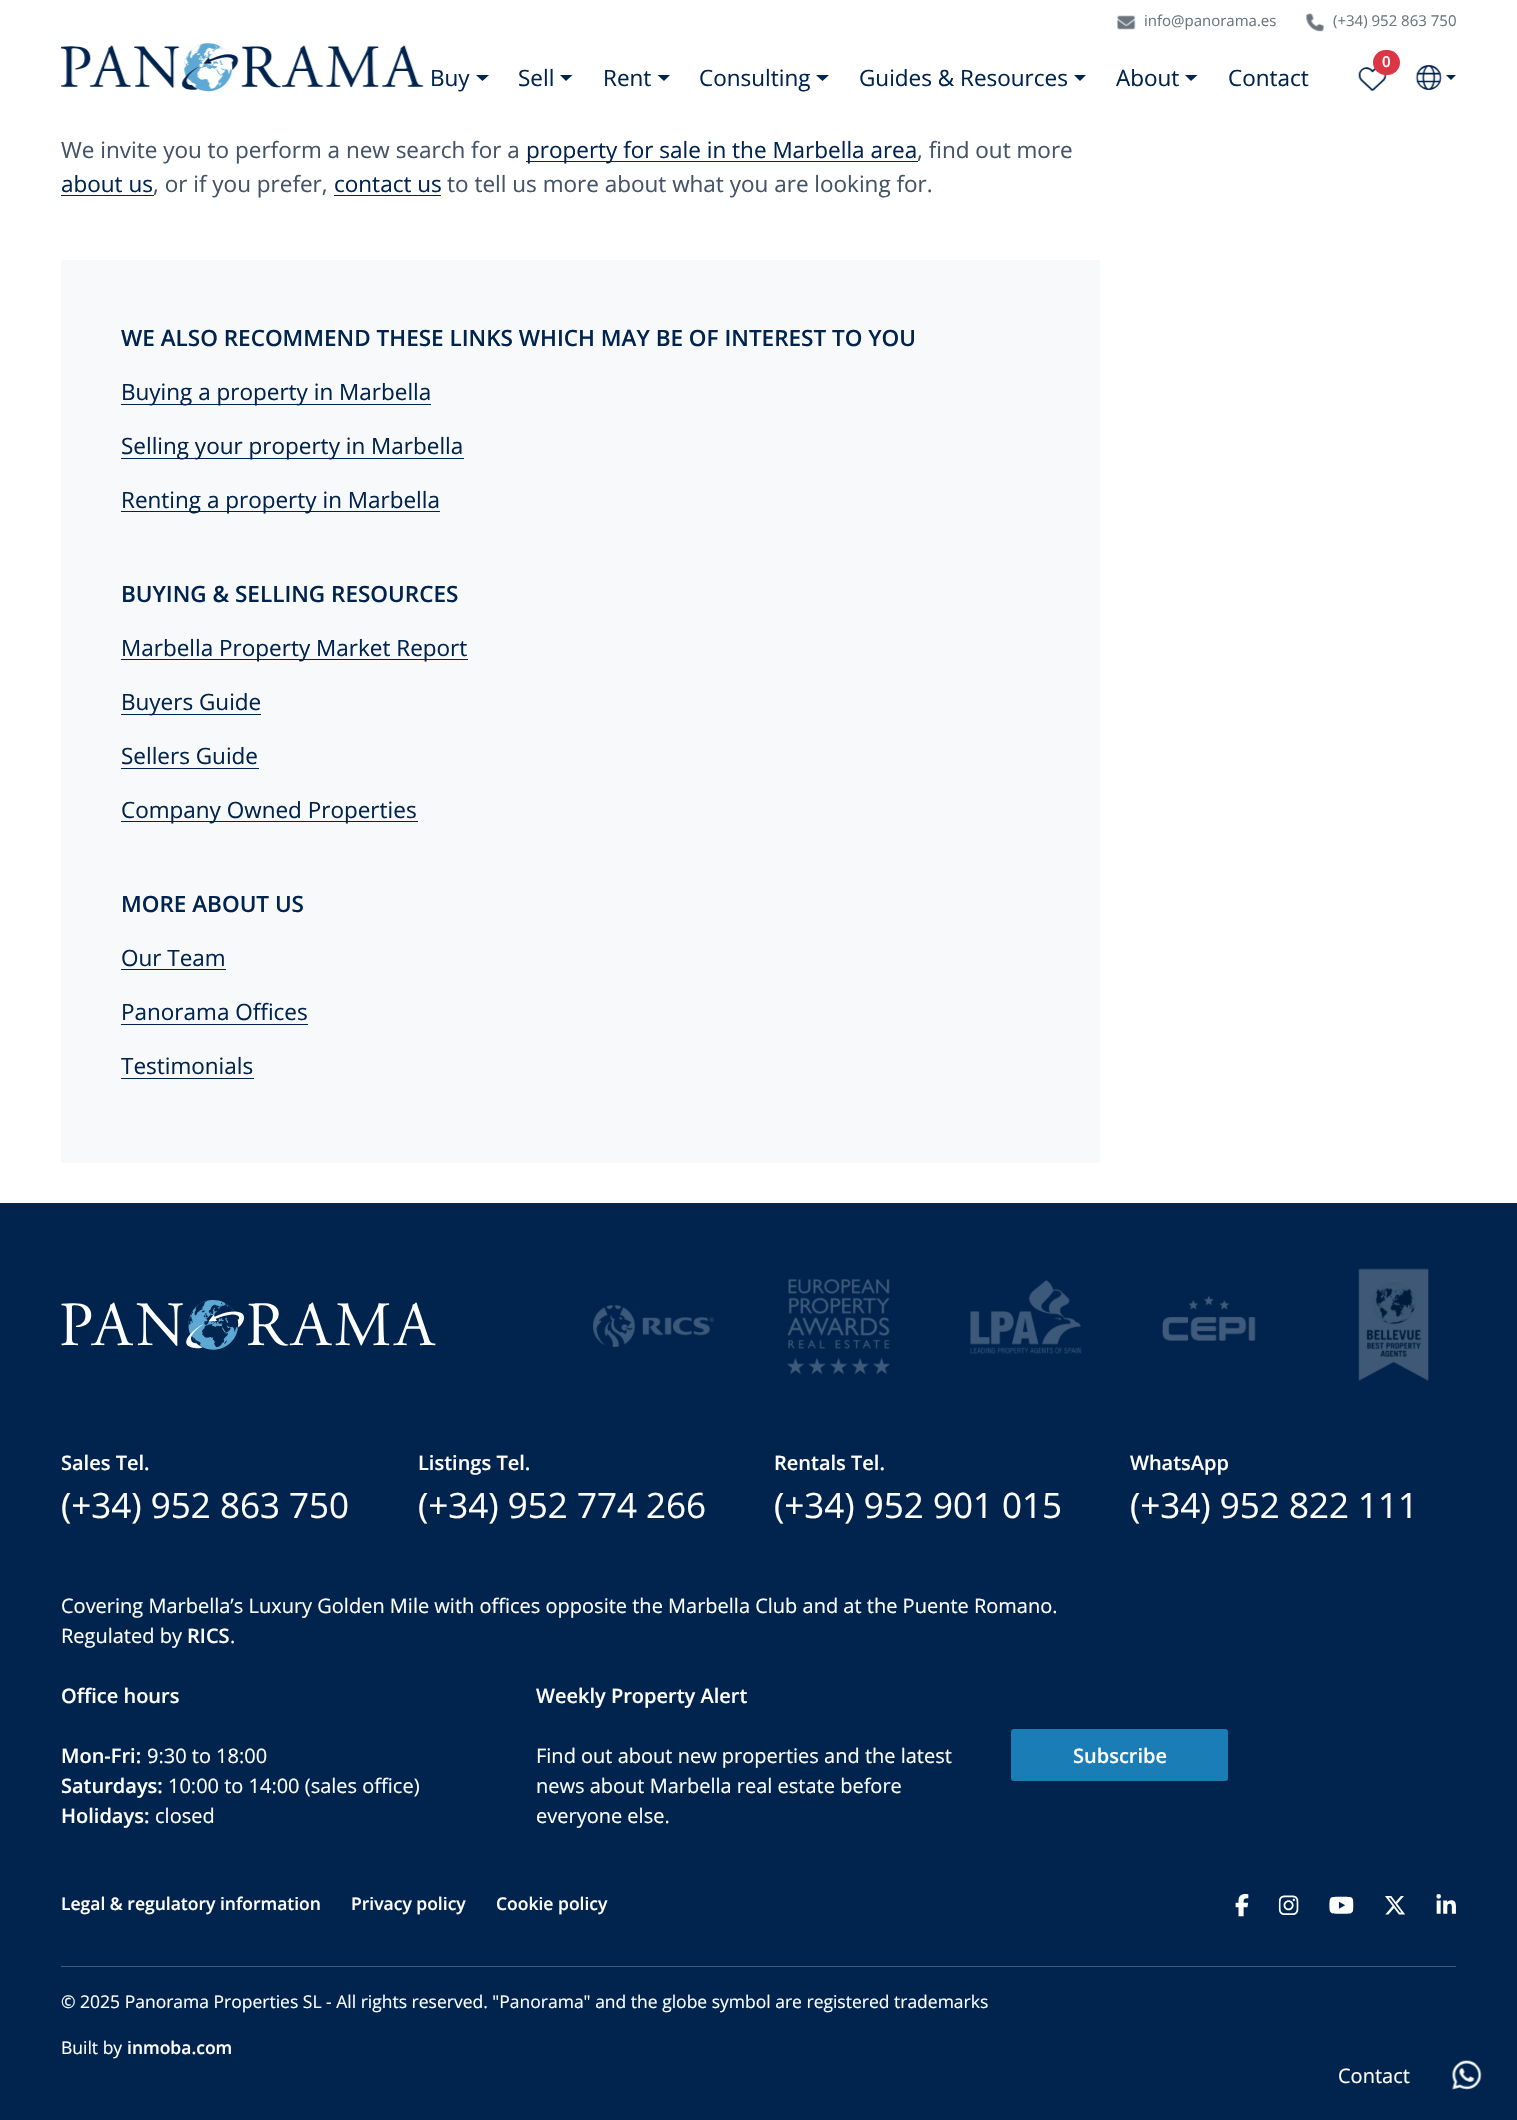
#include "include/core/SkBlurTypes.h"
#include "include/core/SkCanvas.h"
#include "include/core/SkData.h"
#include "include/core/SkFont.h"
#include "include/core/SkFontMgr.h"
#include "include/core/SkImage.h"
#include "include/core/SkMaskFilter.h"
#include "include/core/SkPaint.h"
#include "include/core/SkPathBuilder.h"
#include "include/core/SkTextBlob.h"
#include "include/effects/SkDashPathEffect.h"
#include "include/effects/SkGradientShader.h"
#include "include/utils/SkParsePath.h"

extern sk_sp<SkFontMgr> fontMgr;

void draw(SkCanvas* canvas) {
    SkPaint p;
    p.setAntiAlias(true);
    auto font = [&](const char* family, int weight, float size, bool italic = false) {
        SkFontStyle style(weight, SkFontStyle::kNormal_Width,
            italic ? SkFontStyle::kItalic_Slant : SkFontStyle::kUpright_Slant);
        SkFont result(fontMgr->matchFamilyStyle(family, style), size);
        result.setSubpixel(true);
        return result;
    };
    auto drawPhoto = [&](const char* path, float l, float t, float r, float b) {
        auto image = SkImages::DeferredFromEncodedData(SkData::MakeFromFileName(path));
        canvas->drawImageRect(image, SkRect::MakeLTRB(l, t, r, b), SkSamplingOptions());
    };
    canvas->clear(0xFFFFFFFF);
    drawPhoto("media/1.png", 1117, 15, 1136, 30);
    auto font1 = font("Open Sans", 400, 15);
    p.setColor(0xFF6C757D);
    canvas->drawString("info@panorama.es", 1144, 26, font1, p);
    drawPhoto("media/2.png", 1306, 13, 1324, 32);
    canvas->drawString("(+34) 952 863 750", 1333, 26, font1, p);
    drawPhoto("media/3.png", 61, 43, 424, 92);
    drawPhoto("media/4.png", 1358, 67, 1387, 91);
    p.setColor(0xFFDC3545);
    canvas->drawRoundRect(SkRect::MakeLTRB(1373, 50, 1400, 75), 12.5f, 12.5f, p);
    auto font2 = font("Open Sans", 600, 15);
    p.setColor(0xFFFFFFFF);
    canvas->drawString("0", 1382, 67, font2, p);
    drawPhoto("media/5.png", 1415, 65, 1442, 90);
    p.setColor(0xFF00244E);
    canvas->drawPath(SkPathBuilder().moveTo(1446, 75).lineTo(1456, 75).lineTo(1451, 80).close().detach(), p);
    auto font3 = font("Open Sans", 400, 22.5f);
    canvas->drawString("Buy", 430, 86, font3, p);
    canvas->drawPath(SkPathBuilder().moveTo(476, 75).lineTo(489, 75).lineTo(482.5f, 81).close().detach(), p);
    canvas->drawString("Sell", 518, 86, font3, p);
    canvas->drawPath(SkPathBuilder().moveTo(560, 75).lineTo(572.5f, 75).lineTo(566, 81).close().detach(), p);
    canvas->drawString("Rent", 603, 86, font3, p);
    canvas->drawPath(SkPathBuilder().moveTo(657.5f, 75).lineTo(670, 75).lineTo(664, 81).close().detach(), p);
    canvas->drawString("Consulting", 699, 86, font3, p);
    canvas->drawPath(SkPathBuilder().moveTo(816, 75).lineTo(829, 75).lineTo(822.5f, 81).close().detach(), p);
    canvas->drawString("Guides & Resources", 859, 86, font3, p);
    canvas->drawPath(SkPathBuilder().moveTo(1074, 75).lineTo(1086, 75).lineTo(1080, 81).close().detach(), p);
    canvas->drawString("About", 1116, 86, font3, p);
    canvas->drawPath(SkPathBuilder().moveTo(1185, 75).lineTo(1197.5f, 75).lineTo(1191, 81).close().detach(), p);
    canvas->drawString("Contact", 1228, 86, font3, p);
    p.setColor(0xFF445367);
    canvas->drawString("We invite you to perform a new search for a", 61, 158, font3, p);
    p.setColor(0xFF00244E);
    canvas->drawRect(SkRect::MakeLTRB(526, 161, 918, 162), p);
    canvas->drawString("property for sale in the Marbella area", 526, 158, font3, p);
    p.setColor(0xFF445367);
    canvas->drawString(", find out more", 917, 158, font3, p);
    p.setColor(0xFF00244E);
    canvas->drawString("about us", 61, 192, font3, p);
    canvas->drawRect(SkRect::MakeLTRB(61, 195, 154, 196), p);
    p.setColor(0xFF445367);
    canvas->drawString(", or if you prefer,", 153, 192, font3, p);
    p.setColor(0xFF00244E);
    canvas->drawString("contact us", 334, 192, font3, p);
    canvas->drawRect(SkRect::MakeLTRB(334, 195, 441, 196), p);
    p.setColor(0xFF445367);
    canvas->drawString("to tell us more about what you are looking for.", 447, 192, font3, p);
    p.setColor(0xFFF8F9FA);
    canvas->drawRect(SkRect::MakeLTRB(61, 260, 1100, 1163), p);
    auto font4 = font("Open Sans", 600, 22.5f);
    p.setColor(0xFF00244E);
    canvas->drawString("WE ALSO RECOMMEND THESE LINKS WHICH MAY BE OF INTEREST TO YOU", 121, 346, font4, p);
    canvas->drawRect(SkRect::MakeLTRB(121, 404, 431, 405), p);
    canvas->drawString("Buying a property in Marbella", 121, 400, font3, p);
    canvas->drawRect(SkRect::MakeLTRB(121, 458, 464, 459), p);
    canvas->drawString("Selling your property in Marbella", 121, 454, font3, p);
    canvas->drawRect(SkRect::MakeLTRB(121, 511, 440, 512), p);
    canvas->drawString("Renting a property in Marbella", 121, 508, font3, p);
    canvas->drawString("BUYING & SELLING RESOURCES", 121, 602, font4, p);
    canvas->drawRect(SkRect::MakeLTRB(121, 659, 468, 660), p);
    canvas->drawString("Marbella Property Market Report", 121, 656, font3, p);
    canvas->drawRect(SkRect::MakeLTRB(121, 714, 261, 715), p);
    canvas->drawString("Buyers Guide", 121, 710, font3, p);
    canvas->drawString("Sellers Guide", 121, 764, font3, p);
    canvas->drawRect(SkRect::MakeLTRB(121, 768, 259, 769), p);
    canvas->drawRect(SkRect::MakeLTRB(121, 821, 418, 822), p);
    canvas->drawString("Company Owned Properties", 121, 818, font3, p);
    canvas->drawString("MORE ABOUT US", 121, 912, font4, p);
    canvas->drawString("Our Team", 121, 966, font3, p);
    canvas->drawRect(SkRect::MakeLTRB(121, 969, 226, 970), p);
    canvas->drawString("Panorama Offices", 121, 1020, font3, p);
    canvas->drawRect(SkRect::MakeLTRB(121, 1024, 308, 1025), p);
    canvas->drawString("Testimonials", 121, 1074, font3, p);
    canvas->drawRect(SkRect::MakeLTRB(121, 1078, 254, 1079), p);
    canvas->drawRect(SkRect::MakeLTRB(0, 1203, 1517, 2120), p);
    drawPhoto("media/6.png", 61, 1300, 436, 1350);
    drawPhoto("media/7.png", 593, 1305, 714, 1347);
    drawPhoto("media/8.png", 787, 1279, 890, 1375);
    drawPhoto("media/9.png", 970, 1280, 1082, 1354);
    drawPhoto("media/10.png", 1162, 1296, 1256, 1341);
    drawPhoto("media/11.png", 1358, 1268, 1429, 1381);
    auto font5 = font("Open Sans", 600, 20);
    p.setColor(0xFFFFFFFF);
    canvas->drawString("Sales Tel.", 61, 1470, font5, p);
    auto font6 = font("Open Sans", 400, 35);
    canvas->drawString("(+34) 952 863 750", 61, 1518, font6, p);
    canvas->drawString("Listings Tel.", 418, 1470, font5, p);
    canvas->drawString("(+34) 952 774 266", 418, 1518, font6, p);
    canvas->drawString("Rentals Tel.", 774, 1470, font5, p);
    canvas->drawString("(+34) 952 901 015", 774, 1518, font6, p);
    canvas->drawString("WhatsApp", 1130, 1470, font5, p);
    canvas->drawString("(+34) 952 822 111", 1130, 1518, font6, p);
    auto font7 = font("Open Sans", 400, 20);
    canvas->drawString("Covering Marbella’s Luxury Golden Mile with offices opposite the Marbella Club and at the Puente Romano.", 61, 1613, font7, p);
    canvas->drawString("Regulated by", 61, 1643, font7, p);
    canvas->drawString("RICS", 187, 1643, font5, p);
    canvas->drawString(".", 230, 1643, font7, p);
    canvas->drawString("Office hours", 61, 1703, font5, p);
    canvas->drawString("Mon-Fri:", 61, 1763, font5, p);
    canvas->drawString("9:30 to 18:00", 147, 1763, font7, p);
    canvas->drawString("Saturdays:", 61, 1793, font5, p);
    canvas->drawString("10:00 to 14:00 (sales office)", 168, 1793, font7, p);
    canvas->drawString("Holidays:", 61, 1823, font5, p);
    canvas->drawString("closed", 155, 1823, font7, p);
    canvas->drawString("Weekly Property Alert", 536, 1703, font5, p);
    {
        const struct { const char* s; float x, y; } items[] = {
            {"Find out about new properties and the latest", 536, 1763},
            {"news about Marbella real estate before", 536, 1793},
            {"everyone else.", 536, 1823},
        };
        for (auto [s, x, y] : items) {
            canvas->drawString(s, x, y, font7, p);
        }
    }
    p.setColor(0xFF1B7DB6);
    canvas->drawRoundRect(SkRect::MakeLTRB(1011.5f, 1729.5f, 1227.5f, 1780.5f), 2, 2, p);
    p.setStyle(SkPaint::kStroke_Style);
    p.setStrokeWidth(1);
    canvas->drawRoundRect(SkRect::MakeLTRB(1011.5f, 1729.5f, 1227.5f, 1780.5f), 2, 2, p);
    p.setStyle(SkPaint::kFill_Style);
    p.setColor(0xFFFFFFFF);
    canvas->drawString("Subscribe", 1073, 1763, font5, p);
    auto font8 = font("Open Sans", 600, 17.5f);
    {
        const struct { const char* s; float x, y; } items[] = {
            {"Legal & regulatory information", 61, 1910},
            {"Privacy policy", 351, 1910},
            {"Cookie policy", 496, 1910},
        };
        for (auto [s, x, y] : items) {
            canvas->drawString(s, x, y, font8, p);
        }
    }
    drawPhoto("media/12.png", 1235, 1894, 1249, 1917);
    drawPhoto("media/13.png", 1278, 1895, 1299, 1915);
    drawPhoto("media/14.png", 1329, 1896, 1354, 1914);
    drawPhoto("media/15.png", 1385, 1896, 1405, 1915);
    drawPhoto("media/16.png", 1436, 1894, 1456, 1914);
    p.setColor(0xFF405B7A);
    canvas->drawRect(SkRect::MakeLTRB(61, 1966, 1456, 1967), p);
    auto font9 = font("Open Sans", 400, 17.5f);
    p.setColor(0xFFFFFFFF);
    canvas->drawString("© 2025 Panorama Properties SL - All rights reserved. \"Panorama\" and the globe symbol are registered trademarks", 61, 2008, font9, p);
    canvas->drawString("Built by", 61, 2054, font9, p);
    canvas->drawString("inmoba.com", 127, 2054, font8, p);
    canvas->drawString("Contact", 1338, 2083, font7, p);
    drawPhoto("media/17.png", 1452, 2060, 1482, 2090);
}
